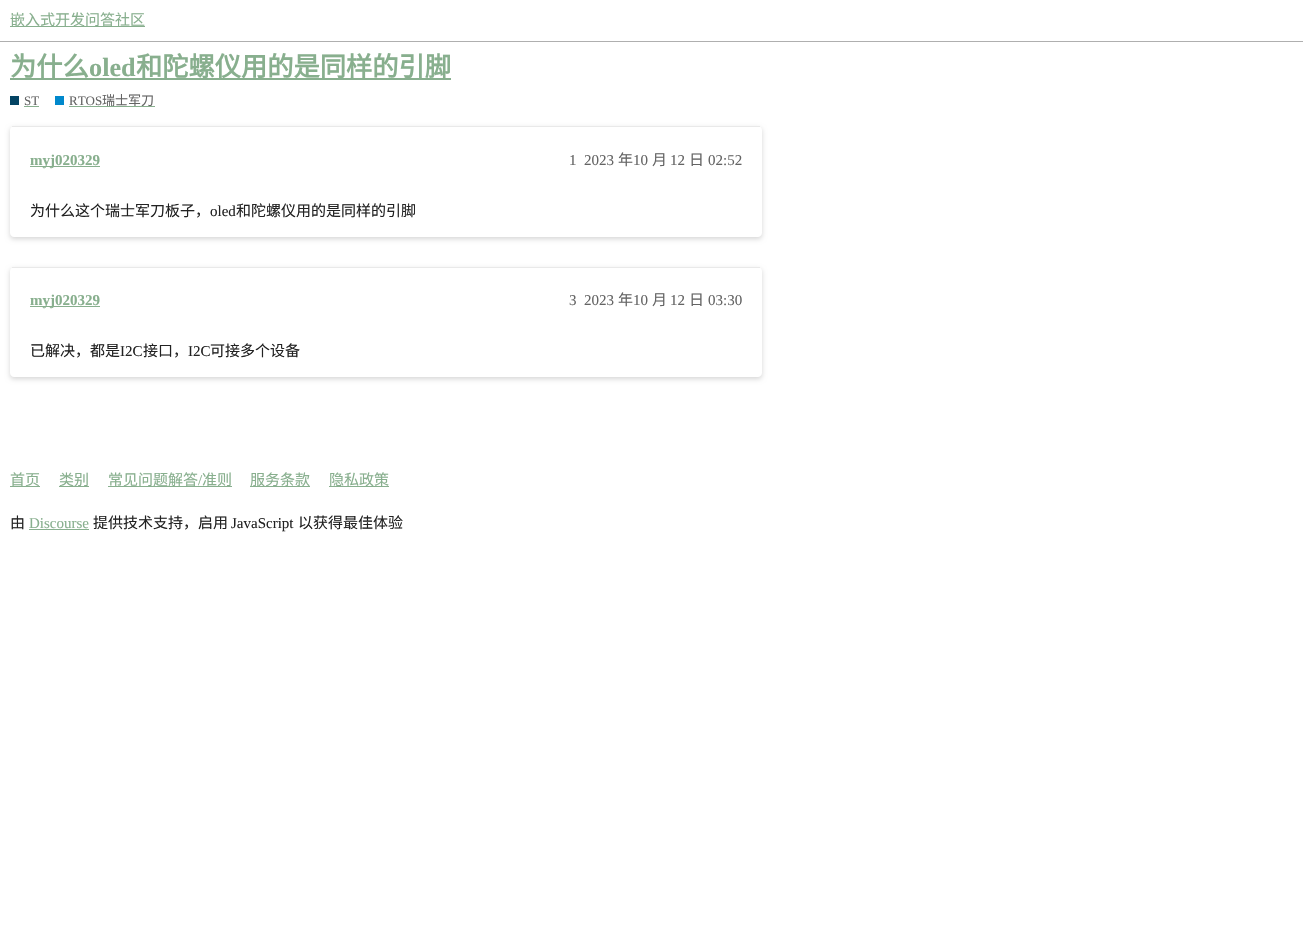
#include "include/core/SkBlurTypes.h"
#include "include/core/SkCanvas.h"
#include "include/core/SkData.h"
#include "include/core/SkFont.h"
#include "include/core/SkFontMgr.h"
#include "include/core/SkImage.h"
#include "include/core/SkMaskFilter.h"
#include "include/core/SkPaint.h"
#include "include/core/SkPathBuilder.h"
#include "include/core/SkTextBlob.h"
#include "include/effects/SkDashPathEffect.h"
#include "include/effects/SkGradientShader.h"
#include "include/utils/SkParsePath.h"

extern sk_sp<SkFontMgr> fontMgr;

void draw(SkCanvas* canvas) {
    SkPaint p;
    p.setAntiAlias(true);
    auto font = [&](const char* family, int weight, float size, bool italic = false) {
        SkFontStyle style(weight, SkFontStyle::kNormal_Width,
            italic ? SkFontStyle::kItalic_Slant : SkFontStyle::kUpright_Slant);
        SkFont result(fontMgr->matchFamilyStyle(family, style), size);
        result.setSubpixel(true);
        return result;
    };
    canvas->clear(0xFFFFFFFF);
    p.setColor(0xFFAFAFAF);
    canvas->drawRect(SkRect::MakeLTRB(0, 41, 1303, 42), p);
    p.setColor(0xFF88AF8E);
    canvas->drawRect(SkRect::MakeLTRB(10, 26, 145, 27), p);
    auto font1 = font("Noto Sans CJK SC", 400, 15);
    canvas->drawString("嵌入式开发问答社区", 10, 25, font1, p);
    canvas->drawRect(SkRect::MakeLTRB(10, 78, 451, 80), p);
    auto font2 = font("Noto Sans CJK SC", 700, 26.25f);
    canvas->drawString("为什么", 10, 76, font2, p);
    auto font3 = font("Liberation Serif", 700, 26.25f);
    canvas->drawString("oled", 89, 76, font3, p);
    canvas->drawString("和陀螺仪用的是同样的引脚", 136, 76, font2, p);
    p.setColor(0xFF034363);
    canvas->drawRect(SkRect::MakeLTRB(10, 96, 19, 105), p);
    auto font4 = font("Liberation Serif", 400, 13);
    p.setColor(0xFF646464);
    canvas->drawString("ST", 24, 105, font4, p);
    p.setColor(0xFF88AF8E);
    canvas->drawRect(SkRect::MakeLTRB(24, 106, 39, 107), p);
    p.setColor(0xFF0088CC);
    canvas->drawRect(SkRect::MakeLTRB(55, 96, 64, 105), p);
    p.setColor(0xFF646464);
    canvas->drawString("RTOS", 69, 105, font4, p);
    p.setColor(0xFF88AF8E);
    canvas->drawRect(SkRect::MakeLTRB(69, 106, 155, 107), p);
    auto font5 = font("Noto Sans CJK SC", 400, 13);
    p.setColor(0xFF646464);
    canvas->drawString("瑞士军刀", 102, 105, font5, p);
    canvas->save();
    canvas->clipPath(SkPathBuilder(SkPathFillType::kEvenOdd).moveTo(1, 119).lineTo(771, 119).lineTo(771, 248).lineTo(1, 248).close().moveTo(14, 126).lineTo(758, 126).cubicTo(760, 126, 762, 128, 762, 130).lineTo(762, 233).cubicTo(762, 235, 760, 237, 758, 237).lineTo(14, 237).cubicTo(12, 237, 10, 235, 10, 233).lineTo(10, 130).cubicTo(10, 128, 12, 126, 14, 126).close().detach(), true);
    p.setColor(0x29000000);
    p.setMaskFilter(SkMaskFilter::MakeBlur(kNormal_SkBlurStyle, 2.5f));
    canvas->drawRoundRect(SkRect::MakeLTRB(10, 128, 762, 239), 4, 4, p);
    p.setMaskFilter(nullptr);
    canvas->restore();
    p.setColor(0xFFE9E9E9);
    canvas->drawRect(SkRect::MakeLTRB(12, 126, 760, 127), p);
    p.setColor(0xFF88AF8E);
    canvas->drawRect(SkRect::MakeLTRB(30, 166, 100, 167), p);
    auto font6 = font("Liberation Serif", 700, 15);
    canvas->drawString("myj020329", 30, 165, font6, p);
    auto font7 = font("Liberation Serif", 400, 15);
    p.setColor(0xFF646464);
    canvas->drawString("1", 569, 165, font7, p);
    canvas->drawString("2023", 584, 165, font7, p);
    canvas->drawString("年", 618, 165, font1, p);
    canvas->drawString("10", 633, 165, font7, p);
    canvas->drawString("月", 652, 165, font1, p);
    canvas->drawString("12", 670, 165, font7, p);
    canvas->drawString("日", 689, 165, font1, p);
    canvas->drawString("02:52", 708, 165, font7, p);
    p.setColor(0xFF222222);
    canvas->drawString("为什么这个瑞士军刀板子，", 30, 216, font1, p);
    canvas->drawString("oled", 210, 216, font7, p);
    canvas->drawString("和陀螺仪用的是同样的引脚", 236, 216, font1, p);
    canvas->save();
    canvas->clipPath(SkPathBuilder(SkPathFillType::kEvenOdd).moveTo(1, 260).lineTo(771, 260).lineTo(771, 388).lineTo(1, 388).close().moveTo(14, 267).lineTo(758, 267).cubicTo(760, 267, 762, 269, 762, 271).lineTo(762, 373).cubicTo(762, 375, 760, 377, 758, 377).lineTo(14, 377).cubicTo(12, 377, 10, 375, 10, 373).lineTo(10, 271).cubicTo(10, 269, 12, 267, 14, 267).close().detach(), true);
    p.setColor(0x29000000);
    p.setMaskFilter(SkMaskFilter::MakeBlur(kNormal_SkBlurStyle, 2.5f));
    canvas->drawRoundRect(SkRect::MakeLTRB(10, 269, 762, 379), 4, 4, p);
    p.setMaskFilter(nullptr);
    canvas->restore();
    p.setColor(0xFFE9E9E9);
    canvas->drawRect(SkRect::MakeLTRB(12, 267, 760, 268), p);
    p.setColor(0xFF88AF8E);
    canvas->drawRect(SkRect::MakeLTRB(30, 306, 100, 307), p);
    canvas->drawString("myj020329", 30, 305, font6, p);
    p.setColor(0xFF646464);
    canvas->drawString("3", 569, 305, font7, p);
    canvas->drawString("2023", 584, 305, font7, p);
    canvas->drawString("年", 618, 305, font1, p);
    canvas->drawString("10", 633, 305, font7, p);
    canvas->drawString("月", 652, 305, font1, p);
    canvas->drawString("12", 670, 305, font7, p);
    canvas->drawString("日", 689, 305, font1, p);
    canvas->drawString("03:30", 708, 305, font7, p);
    p.setColor(0xFF222222);
    canvas->drawString("已解决，都是", 30, 356, font1, p);
    canvas->drawString("I2C", 120, 356, font7, p);
    canvas->drawString("接口，", 143, 356, font1, p);
    canvas->drawString("I2C", 188, 356, font7, p);
    canvas->drawString("可接多个设备", 210, 356, font1, p);
    p.setColor(0xFF88AF8E);
    canvas->drawRect(SkRect::MakeLTRB(10, 486, 40, 487), p);
    canvas->drawString("首页", 10, 485, font1, p);
    canvas->drawRect(SkRect::MakeLTRB(59, 486, 89, 487), p);
    canvas->drawString("类别", 59, 485, font1, p);
    canvas->drawRect(SkRect::MakeLTRB(108, 486, 232, 487), p);
    canvas->drawString("常见问题解答", 108, 485, font1, p);
    canvas->drawString("/", 198, 485, font7, p);
    canvas->drawString("准则", 202, 485, font1, p);
    canvas->drawRect(SkRect::MakeLTRB(250, 486, 310, 487), p);
    canvas->drawString("服务条款", 250, 485, font1, p);
    canvas->drawRect(SkRect::MakeLTRB(329, 486, 389, 487), p);
    canvas->drawString("隐私政策", 329, 485, font1, p);
    p.setColor(0xFF222222);
    canvas->drawString("由", 10, 528, font1, p);
    p.setColor(0xFF88AF8E);
    canvas->drawString("Discourse", 29, 528, font7, p);
    canvas->drawRect(SkRect::MakeLTRB(29, 529, 89, 530), p);
    p.setColor(0xFF222222);
    canvas->drawString("提供技术支持，启用", 93, 528, font1, p);
    canvas->drawString("JavaScript", 231, 528, font7, p);
    canvas->drawString("以获得最佳体验", 298, 528, font1, p);
}
